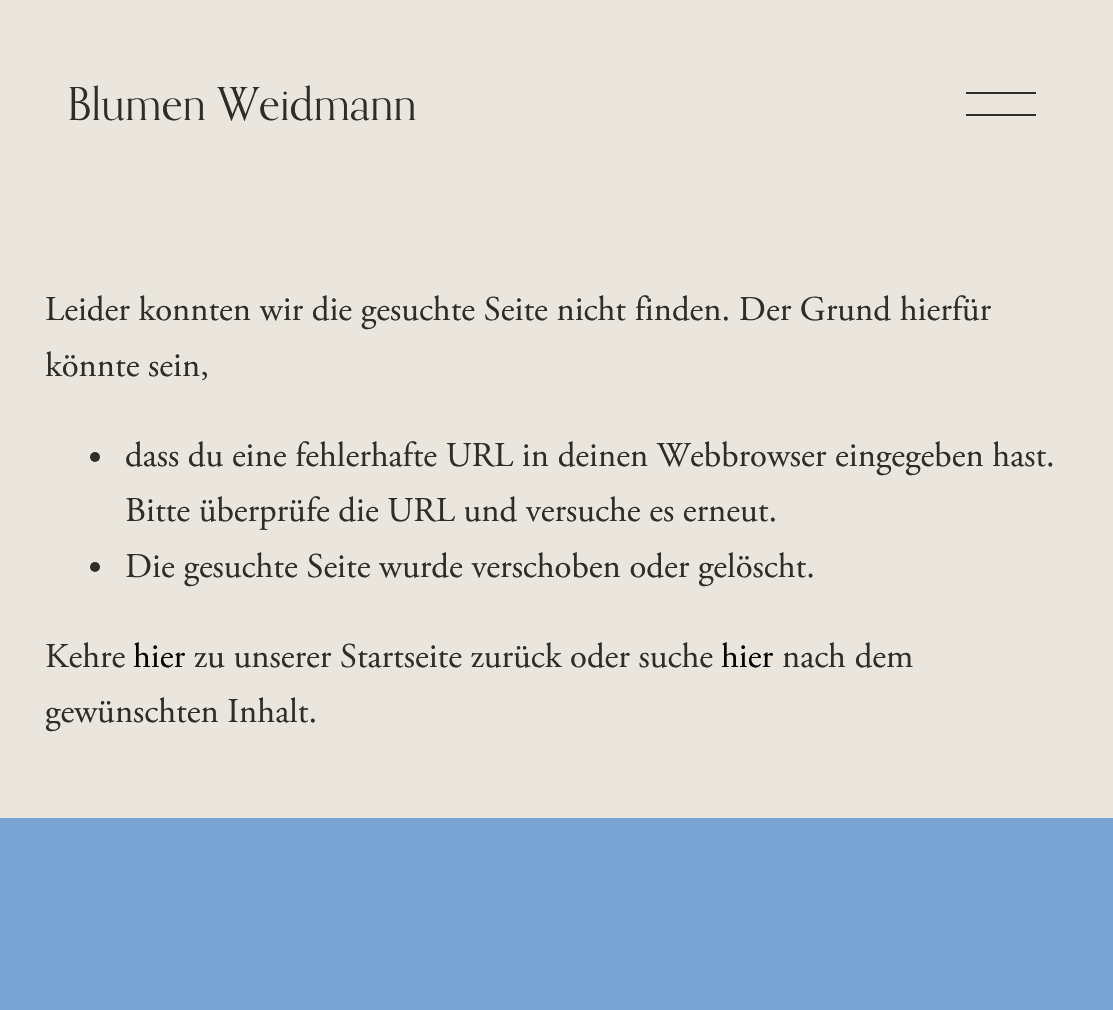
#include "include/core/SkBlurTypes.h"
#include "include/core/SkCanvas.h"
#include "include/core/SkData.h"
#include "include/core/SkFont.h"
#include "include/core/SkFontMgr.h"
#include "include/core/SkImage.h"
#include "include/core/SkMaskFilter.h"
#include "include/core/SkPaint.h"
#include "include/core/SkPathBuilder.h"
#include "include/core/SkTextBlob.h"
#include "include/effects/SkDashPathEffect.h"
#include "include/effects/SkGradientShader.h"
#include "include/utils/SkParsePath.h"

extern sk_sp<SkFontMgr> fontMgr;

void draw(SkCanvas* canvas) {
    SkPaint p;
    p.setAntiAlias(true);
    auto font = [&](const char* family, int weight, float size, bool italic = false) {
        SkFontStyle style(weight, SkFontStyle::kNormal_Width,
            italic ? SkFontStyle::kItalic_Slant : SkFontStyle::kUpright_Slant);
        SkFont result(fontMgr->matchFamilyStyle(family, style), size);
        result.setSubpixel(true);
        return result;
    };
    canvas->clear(0xFFEAE6DD);
    auto font1 = font("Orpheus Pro", 400, 45.5f);
    p.setColor(0xFF2D2D2A);
    canvas->drawString("Blumen Weidmann", 67, 120, font1, p);
    canvas->drawRect(SkRect::MakeLTRB(966, 92, 1036, 94), p);
    canvas->drawRect(SkRect::MakeLTRB(966, 114, 1036, 116), p);
    auto font2 = font("Adobe Garamond", 400, 34.7f);
    canvas->drawString("Leider konnten wir die gesuchte Seite nicht finden. Der Grund hierfür", 45, 320, font2, p);
    canvas->drawString("könnte sein,", 45, 376, font2, p);
    canvas->drawCircle(95, 457, 5, p);
    canvas->drawString("dass du eine fehlerhafte URL in deinen Webbrowser eingegeben hast.", 125, 466, font2, p);
    canvas->drawString("Bitte überprüfe die URL und versuche es erneut.", 125, 521, font2, p);
    canvas->drawCircle(95, 567, 5, p);
    canvas->drawString("Die gesuchte Seite wurde verschoben oder gelöscht.", 125, 577, font2, p);
    canvas->drawString("Kehre", 45, 667, font2, p);
    p.setColor(0xFF000000);
    canvas->drawString("hier", 133, 667, font2, p);
    p.setColor(0xFF2D2D2A);
    canvas->drawString("zu unserer Startseite zurück oder suche", 194, 667, font2, p);
    p.setColor(0xFF000000);
    canvas->drawString("hier", 721, 667, font2, p);
    p.setColor(0xFF2D2D2A);
    canvas->drawString("nach dem", 782, 667, font2, p);
    canvas->drawString("gewünschten Inhalt.", 45, 722, font2, p);
    p.setColor(0xFF78A3D2);
    canvas->drawRect(SkRect::MakeLTRB(0, 818, 1113, 1010), p);
}
